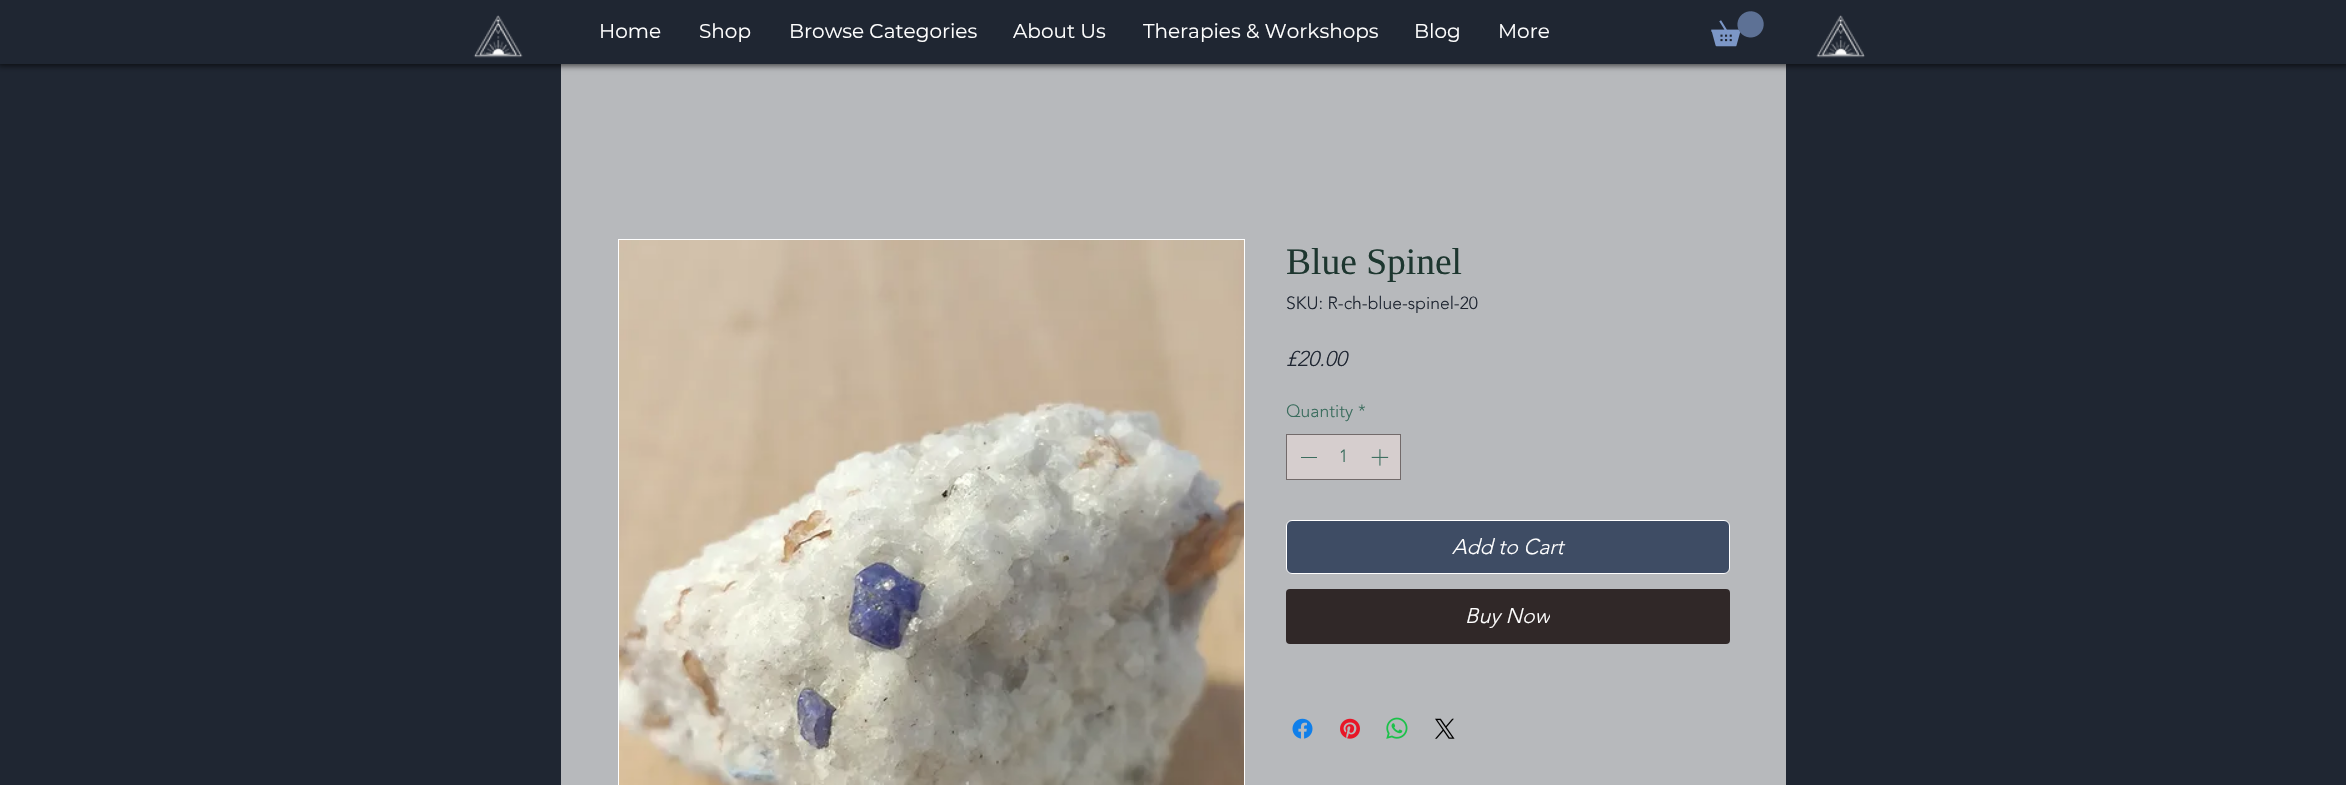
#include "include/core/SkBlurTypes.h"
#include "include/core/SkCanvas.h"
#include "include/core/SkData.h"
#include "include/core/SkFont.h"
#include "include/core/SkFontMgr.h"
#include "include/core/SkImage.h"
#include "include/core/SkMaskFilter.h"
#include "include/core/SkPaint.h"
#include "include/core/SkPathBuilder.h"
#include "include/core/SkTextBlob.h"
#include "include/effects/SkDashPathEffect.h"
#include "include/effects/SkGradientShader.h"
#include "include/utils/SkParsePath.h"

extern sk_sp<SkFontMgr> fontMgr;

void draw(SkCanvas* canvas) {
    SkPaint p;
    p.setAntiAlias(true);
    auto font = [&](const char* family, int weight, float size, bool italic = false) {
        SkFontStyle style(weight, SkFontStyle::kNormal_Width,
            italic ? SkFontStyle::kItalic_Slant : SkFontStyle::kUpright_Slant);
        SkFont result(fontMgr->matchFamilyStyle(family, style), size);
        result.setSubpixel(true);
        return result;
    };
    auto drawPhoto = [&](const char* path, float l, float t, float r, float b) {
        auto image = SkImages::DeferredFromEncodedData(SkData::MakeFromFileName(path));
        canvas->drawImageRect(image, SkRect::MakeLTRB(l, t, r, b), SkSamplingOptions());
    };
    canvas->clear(0xFF1F2632);
    p.setColor(0xFFB7B9BC);
    canvas->drawRect(SkRect::MakeLTRB(561, 64, 1786, 785), p);
    p.setColor(0xA1000000);
    p.setMaskFilter(SkMaskFilter::MakeBlur(kNormal_SkBlurStyle, 3));
    canvas->drawRect(SkRect::MakeLTRB(-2, -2, 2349, 66), p);
    p.setMaskFilter(nullptr);
    p.setColor(0xFF1F2632);
    canvas->drawRect(SkRect::MakeLTRB(0, 0, 2346, 64), p);
    drawPhoto("media/1.png", 473, 15, 523, 58);
    drawPhoto("media/2.png", 1816, 15, 1865, 58);
    auto font1 = font("Montserrat", 400, 20);
    p.setColor(0xFFFFFFFF);
    {
        const struct { const char* s; float x, y; } items[] = {
            {"Home", 599, 38},
            {"Shop", 699, 38},
            {"Browse Categories", 789, 38},
            {"About Us", 1013, 38},
            {"Therapies & Workshops", 1143, 38},
            {"Blog", 1414, 38},
            {"More", 1498, 38},
        };
        for (auto [s, x, y] : items) {
            canvas->drawString(s, x, y, font1, p);
        }
    }
    drawPhoto("media/3.png", 1711, 11, 1764, 47);
    p.setStyle(SkPaint::kStroke_Style);
    p.setStrokeWidth(1);
    canvas->drawRect(SkRect::MakeLTRB(618.5f, 239.5f, 1244.5f, 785.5f), p);
    drawPhoto("media/4.png", 619, 240, 1244, 785);
    auto font2 = font("Liberation Serif", 400, 37.5f);
    p.setStyle(SkPaint::kFill_Style);
    p.setColor(0xFF1D362F);
    canvas->drawString("Blue Spinel", 1286, 274, font2, p);
    auto font3 = font("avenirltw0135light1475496", 300, 17.5f);
    p.setColor(0xFF1F2632);
    canvas->drawString("SKU: R-ch-blue-spinel-20", 1286, 309, font3, p);
    auto font4 = font("avenirltw0135light1475496", 300, 21.25f, true);
    canvas->drawString("£20.00", 1286, 366, font4, p);
    p.setColor(0xFF3B6D5E);
    canvas->drawString("Quantity", 1286, 417, font3, p);
    canvas->drawString("*", 1358, 417, font3, p);
    p.setColor(0xFFD6CECE);
    canvas->drawRect(SkRect::MakeLTRB(1286.5f, 434.5f, 1400.5f, 479.5f), p);
    p.setStyle(SkPaint::kStroke_Style);
    p.setColor(0xFF726A6A);
    canvas->drawRect(SkRect::MakeLTRB(1286.5f, 434.5f, 1400.5f, 479.5f), p);
    p.setStyle(SkPaint::kFill_Style);
    p.setColor(0xFF3B6D5E);
    canvas->drawRect(SkRect::MakeLTRB(1301, 457, 1317, 458), p);
    canvas->drawString("1", 1339, 462, font3, p);
    drawPhoto("media/5.png", 1371, 449, 1389, 466);
    p.setColor(0xFF3E4C64);
    canvas->drawRoundRect(SkRect::MakeLTRB(1286.5f, 520.5f, 1729.5f, 573.5f), 5.5f, 5.5f, p);
    p.setStyle(SkPaint::kStroke_Style);
    p.setColor(0xFFFFFFFF);
    canvas->drawRoundRect(SkRect::MakeLTRB(1286.5f, 520.5f, 1729.5f, 573.5f), 5.5f, 5.5f, p);
    p.setStyle(SkPaint::kFill_Style);
    canvas->drawString("Add to Cart", 1452, 554, font4, p);
    p.setColor(0xFF302828);
    canvas->drawRoundRect(SkRect::MakeLTRB(1286, 589, 1730, 644), 4, 4, p);
    canvas->save();
    canvas->clipRect(SkRect::MakeLTRB(1465, 601, 1550, 631));
    p.setColor(0xFFFFFFFF);
    canvas->drawString("Buy Now", 1465, 623, font4, p);
    canvas->restore();
    drawPhoto("media/6.png", 1292, 718, 1313, 739);
    drawPhoto("media/7.png", 1340, 718, 1360, 739);
    drawPhoto("media/8.png", 1386, 717, 1408, 739);
    drawPhoto("media/9.png", 1435, 718, 1455, 739);
}
